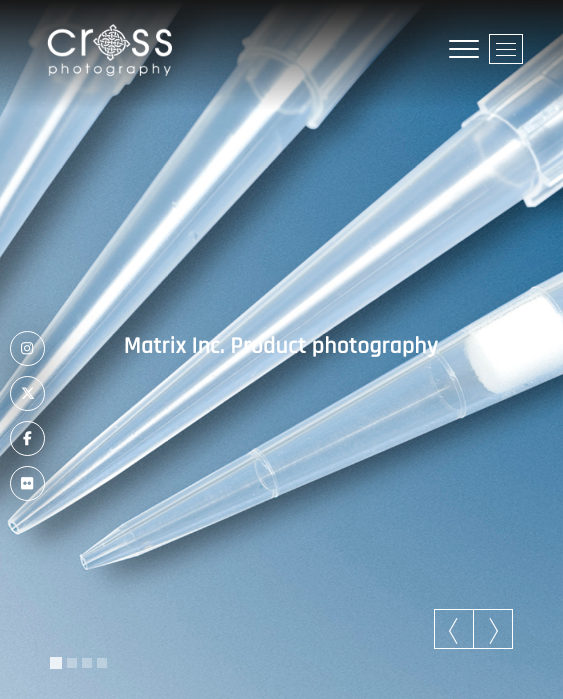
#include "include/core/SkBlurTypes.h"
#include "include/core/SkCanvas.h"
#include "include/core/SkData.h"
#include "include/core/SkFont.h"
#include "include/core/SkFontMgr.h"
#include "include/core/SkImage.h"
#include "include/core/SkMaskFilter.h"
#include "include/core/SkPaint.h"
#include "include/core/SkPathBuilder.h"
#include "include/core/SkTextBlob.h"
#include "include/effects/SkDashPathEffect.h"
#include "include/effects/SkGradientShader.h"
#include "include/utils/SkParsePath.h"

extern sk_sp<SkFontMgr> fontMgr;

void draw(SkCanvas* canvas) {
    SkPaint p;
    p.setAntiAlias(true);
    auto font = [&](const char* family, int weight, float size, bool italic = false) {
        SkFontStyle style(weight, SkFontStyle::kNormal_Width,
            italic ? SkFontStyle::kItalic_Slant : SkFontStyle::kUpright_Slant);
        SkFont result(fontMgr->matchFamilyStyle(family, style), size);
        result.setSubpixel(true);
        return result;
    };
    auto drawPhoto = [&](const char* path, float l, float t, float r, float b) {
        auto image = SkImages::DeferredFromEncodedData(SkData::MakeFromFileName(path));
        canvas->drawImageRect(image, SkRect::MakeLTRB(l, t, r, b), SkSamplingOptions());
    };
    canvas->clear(0xFFFFFFFF);
    drawPhoto("media/6.png", 0, 0, 563, 699);
    drawPhoto("media/1.png", 47, 24, 172, 77);
    p.setColor(0xFFFFFFFF);
    canvas->drawRoundRect(SkRect::MakeLTRB(449, 48, 479, 50), 1, 1, p);
    canvas->drawRoundRect(SkRect::MakeLTRB(449, 40, 479, 42), 1, 1, p);
    canvas->drawRoundRect(SkRect::MakeLTRB(449, 56, 479, 58), 1, 1, p);
    p.setStyle(SkPaint::kStroke_Style);
    p.setStrokeWidth(1);
    canvas->drawRect(SkRect::MakeLTRB(489.5f, 34.5f, 522.5f, 63.5f), p);
    p.setStyle(SkPaint::kFill_Style);
    {
        const struct { float l, t, r, b; SkColor color; } items[] = {
            {496, 49, 516, 50, 0xFFFFFFFF},
            {496, 43, 516, 44, 0xFFFFFFFF},
            {496, 55, 516, 56, 0xFFFFFFFF},
        };
        for (auto [l, t, r, b, color] : items) {
            p.setColor(color);
            canvas->drawRect(SkRect::MakeLTRB(l, t, r, b), p);
        }
    }
    p.setColor(0x4D000000);
    p.setMaskFilter(SkMaskFilter::MakeBlur(kNormal_SkBlurStyle, 25));
    canvas->drawRoundRect(SkRect::MakeLTRB(10, 328, 45, 511), 17.5f, 17.5f, p);
    p.setMaskFilter(nullptr);
    p.setStyle(SkPaint::kStroke_Style);
    p.setColor(0xFFFFFFFF);
    canvas->drawCircle(27.5f, 348.5f, 17, p);
    drawPhoto("media/2.png", 21, 342, 34, 355);
    canvas->drawCircle(27.5f, 393.5f, 17, p);
    drawPhoto("media/3.png", 21, 387, 35, 399);
    canvas->drawCircle(27.5f, 438.5f, 17, p);
    drawPhoto("media/4.png", 23, 431, 32, 446);
    canvas->drawCircle(27.5f, 483.5f, 17, p);
    drawPhoto("media/5.png", 21, 477, 34, 490);
    auto font1 = font("Rajdhani", 600, 24);
    p.setStyle(SkPaint::kFill_Style);
    canvas->drawString("Matrix Inc. Product photography", 124, 353, font1, p);
    p.setStyle(SkPaint::kStroke_Style);
    canvas->drawRect(SkRect::MakeLTRB(434.5f, 609.5f, 473.5f, 648.5f), p);
    p.setStyle(SkPaint::kFill_Style);
    canvas->drawPath(SkPathBuilder().moveTo(456.5f, 618).lineTo(457.5f, 618.5f).lineTo(450, 631.5f).lineTo(449, 631).close().detach(), p);
    p.setStyle(SkPaint::kStroke_Style);
    canvas->drawRect(SkRect::MakeLTRB(473.5f, 609.5f, 512.5f, 648.5f), p);
    p.setStyle(SkPaint::kFill_Style);
    canvas->drawPath(SkPathBuilder().moveTo(449, 631).lineTo(450, 630.5f).lineTo(457.5f, 643.5f).lineTo(456.5f, 644).close().moveTo(490.5f, 644).lineTo(489.5f, 643.5f).lineTo(497, 630.5f).lineTo(498, 631).close().detach(), p);
    canvas->drawPath(SkPathBuilder().moveTo(498, 631).lineTo(497, 631.5f).lineTo(489.5f, 618.5f).lineTo(490.5f, 618).close().detach(), p);
    {
        const struct { float l, t, r, b; SkColor color; } items[] = {
            {50, 657, 62, 669, 0xCCFFFFFF},
            {67, 658, 77, 668, 0x52FFFFFF},
            {82, 658, 92, 668, 0x52FFFFFF},
            {97, 658, 107, 668, 0x52FFFFFF},
        };
        for (auto [l, t, r, b, color] : items) {
            p.setColor(color);
            canvas->drawRect(SkRect::MakeLTRB(l, t, r, b), p);
        }
    }
}
